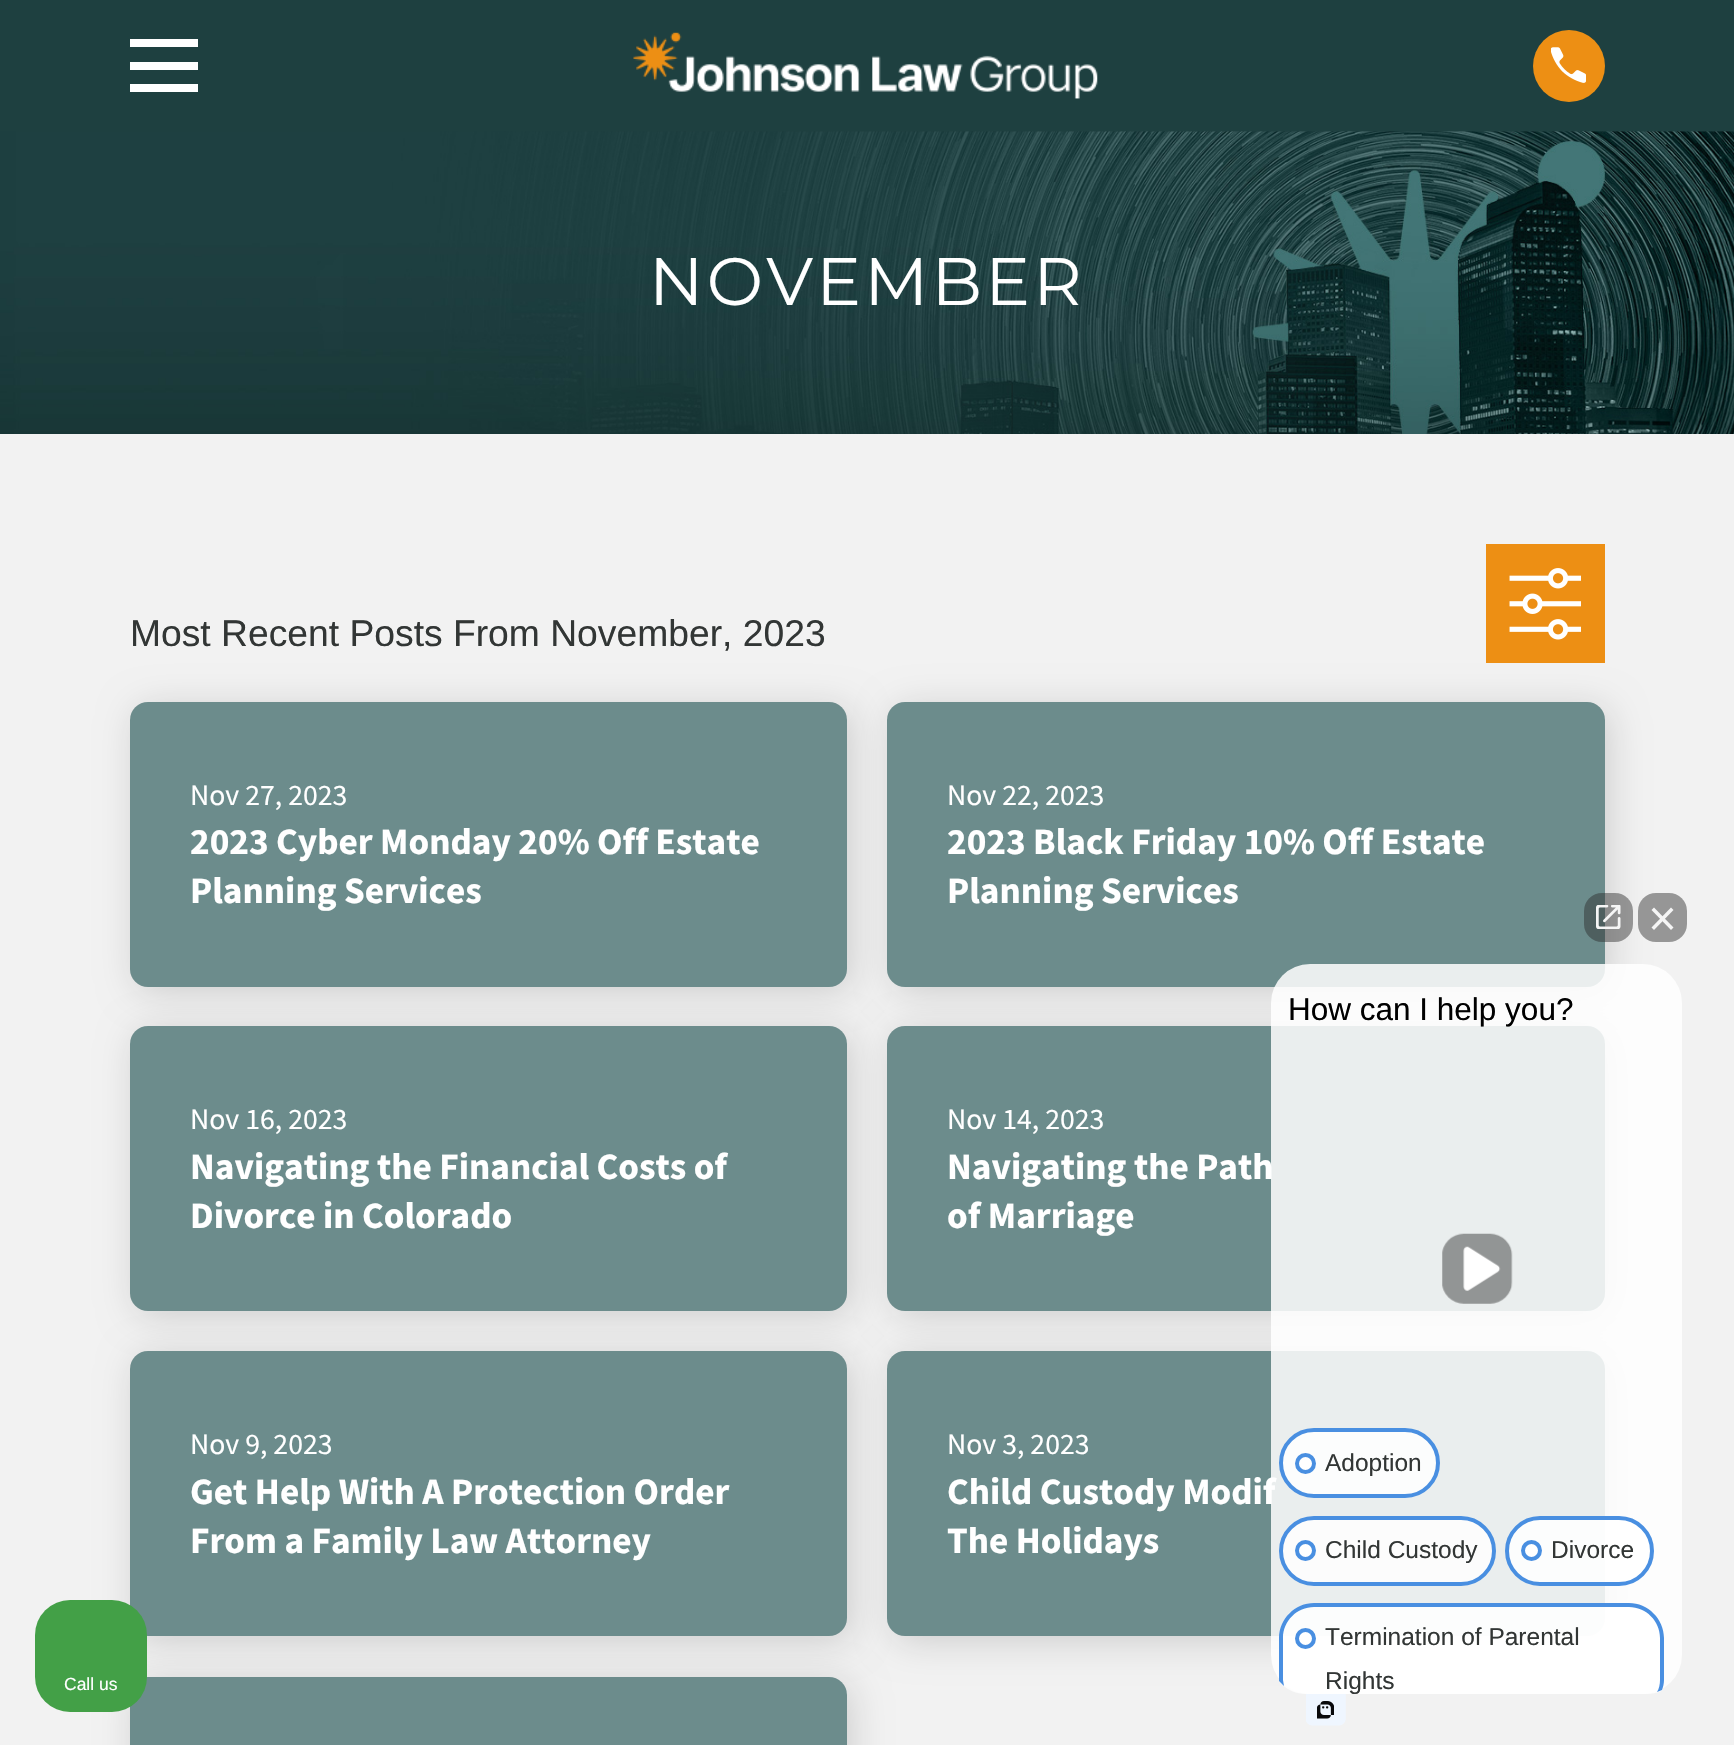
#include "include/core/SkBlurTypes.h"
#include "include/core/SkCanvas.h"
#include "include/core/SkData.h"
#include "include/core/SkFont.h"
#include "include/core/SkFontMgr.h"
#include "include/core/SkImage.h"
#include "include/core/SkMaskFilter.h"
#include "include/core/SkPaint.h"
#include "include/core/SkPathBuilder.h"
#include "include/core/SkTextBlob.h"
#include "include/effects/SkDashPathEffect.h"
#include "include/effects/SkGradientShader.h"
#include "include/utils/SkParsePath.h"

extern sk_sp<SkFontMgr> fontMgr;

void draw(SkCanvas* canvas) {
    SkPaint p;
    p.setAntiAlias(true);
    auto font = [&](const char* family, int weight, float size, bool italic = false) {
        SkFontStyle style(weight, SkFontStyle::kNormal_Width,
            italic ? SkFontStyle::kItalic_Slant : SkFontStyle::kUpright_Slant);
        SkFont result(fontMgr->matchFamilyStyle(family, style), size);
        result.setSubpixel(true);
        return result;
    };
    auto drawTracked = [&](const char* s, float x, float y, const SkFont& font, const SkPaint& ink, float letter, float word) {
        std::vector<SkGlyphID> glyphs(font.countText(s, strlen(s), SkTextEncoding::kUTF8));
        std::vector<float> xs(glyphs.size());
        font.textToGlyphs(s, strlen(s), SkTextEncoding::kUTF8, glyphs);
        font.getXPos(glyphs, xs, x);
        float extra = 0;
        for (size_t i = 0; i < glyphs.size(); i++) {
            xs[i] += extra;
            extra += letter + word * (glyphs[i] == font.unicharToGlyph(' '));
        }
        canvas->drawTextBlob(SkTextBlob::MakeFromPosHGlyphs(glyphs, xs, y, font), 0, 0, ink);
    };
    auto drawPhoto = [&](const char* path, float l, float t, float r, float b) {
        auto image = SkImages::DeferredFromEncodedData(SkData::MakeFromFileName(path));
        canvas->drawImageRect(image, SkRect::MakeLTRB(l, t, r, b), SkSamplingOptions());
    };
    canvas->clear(0xFFF2F2F2);
    p.setColor(0xFF1E4040);
    canvas->drawRect(SkRect::MakeLTRB(0, 0, 1734, 132), p);
    p.setColor(0xFFFFFFFF);
    canvas->drawPath(SkPathBuilder().moveTo(130, 39).lineTo(130, 47).lineTo(198, 47).lineTo(198, 39).close().moveTo(130, 62).lineTo(130, 70).lineTo(198, 70).lineTo(198, 62).close().moveTo(130, 84).lineTo(130, 92).lineTo(198, 92).lineTo(198, 84).close().detach(), p);
    drawPhoto("media/1.png", 633, 32, 1098, 99);
    p.setColor(0xFFED8F14);
    canvas->drawCircle(1569, 66, 36, p);
    drawPhoto("media/2.png", 1551, 47, 1586, 83);
    drawPhoto("media/3.png", 0, 131, 1734, 434);
    auto font1 = font("Montserrat", 400, 67);
    p.setColor(0xFFFFFFFF);
    drawTracked("NOVEMBER", 649, 305, font1, p, 3.25f, 0);
    auto font2 = font("Liberation Sans", 400, 37.25f);
    p.setColor(0xFF323635);
    canvas->drawString("Most Recent Posts From November, 2023", 130, 646, font2, p);
    p.setColor(0xFFED8F14);
    canvas->drawRect(SkRect::MakeLTRB(1486, 544, 1605, 663), p);
    drawPhoto("media/4.png", 1509, 568, 1581, 640);
    p.setColor(0x26000000);
    p.setMaskFilter(SkMaskFilter::MakeBlur(kNormal_SkBlurStyle, 18));
    canvas->drawRoundRect(SkRect::MakeLTRB(135, 707, 852, 992), 18, 18, p);
    p.setMaskFilter(nullptr);
    p.setColor(0xFF6C8C8C);
    canvas->drawRoundRect(SkRect::MakeLTRB(130, 702, 847, 987), 18, 18, p);
    auto font3 = font("Source Sans Pro", 400, 29.75f);
    p.setColor(0xFFFFFFFF);
    canvas->drawString("Nov 27, 2023", 190, 805, font3, p);
    auto font4 = font("Source Sans Pro", 700, 37.25f);
    canvas->drawString("2023 Cyber Monday 20% Off Estate", 190, 854, font4, p);
    canvas->drawString("Planning Services", 190, 903, font4, p);
    p.setColor(0x26000000);
    p.setMaskFilter(SkMaskFilter::MakeBlur(kNormal_SkBlurStyle, 18));
    canvas->drawRoundRect(SkRect::MakeLTRB(893, 707, 1610, 992), 18, 18, p);
    p.setMaskFilter(nullptr);
    p.setColor(0xFF6C8C8C);
    canvas->drawRoundRect(SkRect::MakeLTRB(887, 702, 1605, 987), 18, 18, p);
    p.setColor(0xFFFFFFFF);
    canvas->drawString("Nov 22, 2023", 947, 805, font3, p);
    canvas->drawString("2023 Black Friday 10% Off Estate", 947, 854, font4, p);
    canvas->drawString("Planning Services", 947, 903, font4, p);
    p.setColor(0x26000000);
    p.setMaskFilter(SkMaskFilter::MakeBlur(kNormal_SkBlurStyle, 18));
    canvas->drawRoundRect(SkRect::MakeLTRB(135, 1031, 852, 1316), 18, 18, p);
    p.setMaskFilter(nullptr);
    p.setColor(0xFF6C8C8C);
    canvas->drawRoundRect(SkRect::MakeLTRB(130, 1026, 847, 1311), 18, 18, p);
    p.setColor(0xFFFFFFFF);
    canvas->drawString("Nov 16, 2023", 190, 1129, font3, p);
    canvas->drawString("Navigating the Financial Costs of", 190, 1179, font4, p);
    canvas->drawString("Divorce in Colorado", 190, 1228, font4, p);
    p.setColor(0x26000000);
    p.setMaskFilter(SkMaskFilter::MakeBlur(kNormal_SkBlurStyle, 18));
    canvas->drawRoundRect(SkRect::MakeLTRB(893, 1031, 1610, 1316), 18, 18, p);
    p.setMaskFilter(nullptr);
    p.setColor(0xFF6C8C8C);
    canvas->drawRoundRect(SkRect::MakeLTRB(887, 1026, 1605, 1311), 18, 18, p);
    p.setColor(0xFFFFFFFF);
    canvas->drawString("Nov 14, 2023", 947, 1129, font3, p);
    canvas->drawString("Navigating the Path", 947, 1179, font4, p);
    canvas->drawString("of Marriage", 947, 1228, font4, p);
    p.setColor(0x26000000);
    p.setMaskFilter(SkMaskFilter::MakeBlur(kNormal_SkBlurStyle, 18));
    canvas->drawRoundRect(SkRect::MakeLTRB(135, 1356, 852, 1642), 18, 18, p);
    p.setMaskFilter(nullptr);
    p.setColor(0xFF6C8C8C);
    canvas->drawRoundRect(SkRect::MakeLTRB(130, 1351, 847, 1636), 18, 18, p);
    p.setColor(0xFFFFFFFF);
    canvas->drawString("Nov 9, 2023", 190, 1454, font3, p);
    canvas->drawString("Get Help With A Protection Order", 190, 1504, font4, p);
    canvas->drawString("From a Family Law Attorney", 190, 1553, font4, p);
    p.setColor(0x26000000);
    p.setMaskFilter(SkMaskFilter::MakeBlur(kNormal_SkBlurStyle, 18));
    canvas->drawRoundRect(SkRect::MakeLTRB(893, 1356, 1610, 1642), 18, 18, p);
    p.setMaskFilter(nullptr);
    p.setColor(0xFF6C8C8C);
    canvas->drawRoundRect(SkRect::MakeLTRB(887, 1351, 1605, 1636), 18, 18, p);
    p.setColor(0xFFFFFFFF);
    canvas->drawString("Nov 3, 2023", 947, 1454, font3, p);
    canvas->drawString("Child Custody Modif", 947, 1504, font4, p);
    canvas->drawString("The Holidays", 947, 1553, font4, p);
    p.setColor(0x26000000);
    p.setMaskFilter(SkMaskFilter::MakeBlur(kNormal_SkBlurStyle, 18));
    canvas->drawRoundRect(SkRect::MakeLTRB(135, 1682, 852, 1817), 18, 18, p);
    p.setMaskFilter(nullptr);
    p.setColor(0xFF6C8C8C);
    canvas->drawRoundRect(SkRect::MakeLTRB(130, 1677, 847, 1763), 18, 18, p);
    p.setColor(0xFF43A047);
    canvas->drawRoundRect(SkRect::MakeLTRB(35, 1600, 147, 1712), 35, 35, p);
    auto font5 = font("Liberation Sans", 400, 17.5f);
    p.setColor(0xFFFFFFFF);
    canvas->drawString("Call us", 64, 1690, font5, p);
    p.setColor(0xD9FFFFFF);
    canvas->drawRoundRect(SkRect::MakeLTRB(1271, 964, 1682, 1694), 39, 39, p);
    p.setColor(0x73272727);
    canvas->drawRoundRect(SkRect::MakeLTRB(1584, 893, 1633, 942), 18, 18, p);
    drawPhoto("media/5.png", 1596, 905, 1621, 929);
    p.setColor(0xFF969696);
    canvas->drawRoundRect(SkRect::MakeLTRB(1638, 893, 1687, 942), 18, 18, p);
    p.setColor(0xFFF5F5F5);
    canvas->drawPath(SkPathBuilder().moveTo(1651.5f, 910).lineTo(1654, 907.5f).lineTo(1673.5f, 927.5f).lineTo(1671, 930).close().detach(), p);
    canvas->drawPath(SkPathBuilder().moveTo(1671, 907.5f).lineTo(1673.5f, 910).lineTo(1654, 930).lineTo(1651.5f, 927.5f).close().detach(), p);
    auto font6 = font("Liberation Sans", 400, 31.5f);
    p.setColor(0xFF000000);
    canvas->drawString("How can I help you?", 1288, 1020, font6, p);
    drawPhoto("media/6.png", 1442, 1233, 1513, 1304);
    p.setColor(0xD9FFFFFF);
    canvas->drawRoundRect(SkRect::MakeLTRB(1281, 1430, 1438, 1496), 33, 33, p);
    p.setStyle(SkPaint::kStroke_Style);
    p.setStrokeWidth(4);
    p.setColor(0xFF498FE1);
    canvas->drawRoundRect(SkRect::MakeLTRB(1281, 1430, 1438, 1496), 33, 33, p);
    p.setStyle(SkPaint::kFill_Style);
    p.setColor(0xFFFFFFFF);
    canvas->drawCircle(1305.5f, 1463.5f, 8.5f, p);
    p.setStyle(SkPaint::kStroke_Style);
    p.setColor(0xFF498FE1);
    canvas->drawCircle(1305.5f, 1463.5f, 8.5f, p);
    auto font7 = font("Liberation Sans", 400, 24.5f);
    p.setStyle(SkPaint::kFill_Style);
    p.setColor(0xFF323635);
    canvas->drawString("Adoption", 1325, 1471, font7, p);
    p.setColor(0xFFFCFCFC);
    canvas->drawRoundRect(SkRect::MakeLTRB(1281, 1518, 1494, 1584), 33, 33, p);
    p.setStyle(SkPaint::kStroke_Style);
    p.setColor(0xFF498FE1);
    canvas->drawRoundRect(SkRect::MakeLTRB(1281, 1518, 1494, 1584), 33, 33, p);
    p.setStyle(SkPaint::kFill_Style);
    p.setColor(0xFFFFFFFF);
    canvas->drawCircle(1305.5f, 1550.5f, 8.5f, p);
    p.setStyle(SkPaint::kStroke_Style);
    p.setColor(0xFF498FE1);
    canvas->drawCircle(1305.5f, 1550.5f, 8.5f, p);
    p.setStyle(SkPaint::kFill_Style);
    p.setColor(0xFF323635);
    canvas->drawString("Child Custody", 1325, 1558, font7, p);
    p.setColor(0xD9FFFFFF);
    canvas->drawRoundRect(SkRect::MakeLTRB(1507, 1518, 1652, 1584), 33, 33, p);
    p.setStyle(SkPaint::kStroke_Style);
    p.setColor(0xFF498FE1);
    canvas->drawRoundRect(SkRect::MakeLTRB(1507, 1518, 1652, 1584), 33, 33, p);
    p.setStyle(SkPaint::kFill_Style);
    p.setColor(0xFFFFFFFF);
    canvas->drawCircle(1531.5f, 1550.5f, 8.5f, p);
    p.setStyle(SkPaint::kStroke_Style);
    p.setColor(0xFF498FE1);
    canvas->drawCircle(1531.5f, 1550.5f, 8.5f, p);
    p.setStyle(SkPaint::kFill_Style);
    p.setColor(0xFF323635);
    canvas->drawString("Divorce", 1551, 1558, font7, p);
    drawPhoto("media/7.png", 1306, 1694, 1346, 1726);
    canvas->save();
    canvas->clipPath(SkPathBuilder().moveTo(1271, 1045).lineTo(1682, 1045).lineTo(1682, 1659).cubicTo(1682, 1678.5f, 1666.5f, 1694, 1647, 1694).lineTo(1306, 1694).cubicTo(1286.5f, 1694, 1271, 1678.5f, 1271, 1659).close().detach(), true);
    p.setColor(0xD9FFFFFF);
    canvas->drawRoundRect(SkRect::MakeLTRB(1279, 1603, 1664, 1715), 35, 35, p);
    canvas->restore();
    p.setColor(0xFF498FE1);
    canvas->drawPath(SkPathBuilder().moveTo(1314, 1603).cubicTo(1295, 1603, 1279, 1619, 1279, 1638).lineTo(1279, 1681).lineTo(1284, 1686).lineTo(1283, 1680).lineTo(1283, 1638).cubicTo(1283, 1621, 1297, 1607, 1314, 1607).lineTo(1629, 1607).cubicTo(1646, 1607, 1660, 1621, 1660, 1638).lineTo(1660, 1680).cubicTo(1660, 1684, 1659, 1689, 1657, 1692).lineTo(1662, 1690).cubicTo(1663, 1687, 1664, 1684, 1664, 1680).lineTo(1664, 1638).cubicTo(1664, 1619, 1648, 1603, 1629, 1603).close().detach(), p);
    p.setColor(0xFFFFFFFF);
    canvas->drawCircle(1305.5f, 1638.5f, 8.5f, p);
    p.setStyle(SkPaint::kStroke_Style);
    p.setColor(0xFF498FE1);
    canvas->drawCircle(1305.5f, 1638.5f, 8.5f, p);
    p.setStyle(SkPaint::kFill_Style);
    p.setColor(0xFF323635);
    canvas->drawString("Termination of Parental", 1325, 1645, font7, p);
    canvas->drawString("Rights", 1325, 1689, font7, p);
}
